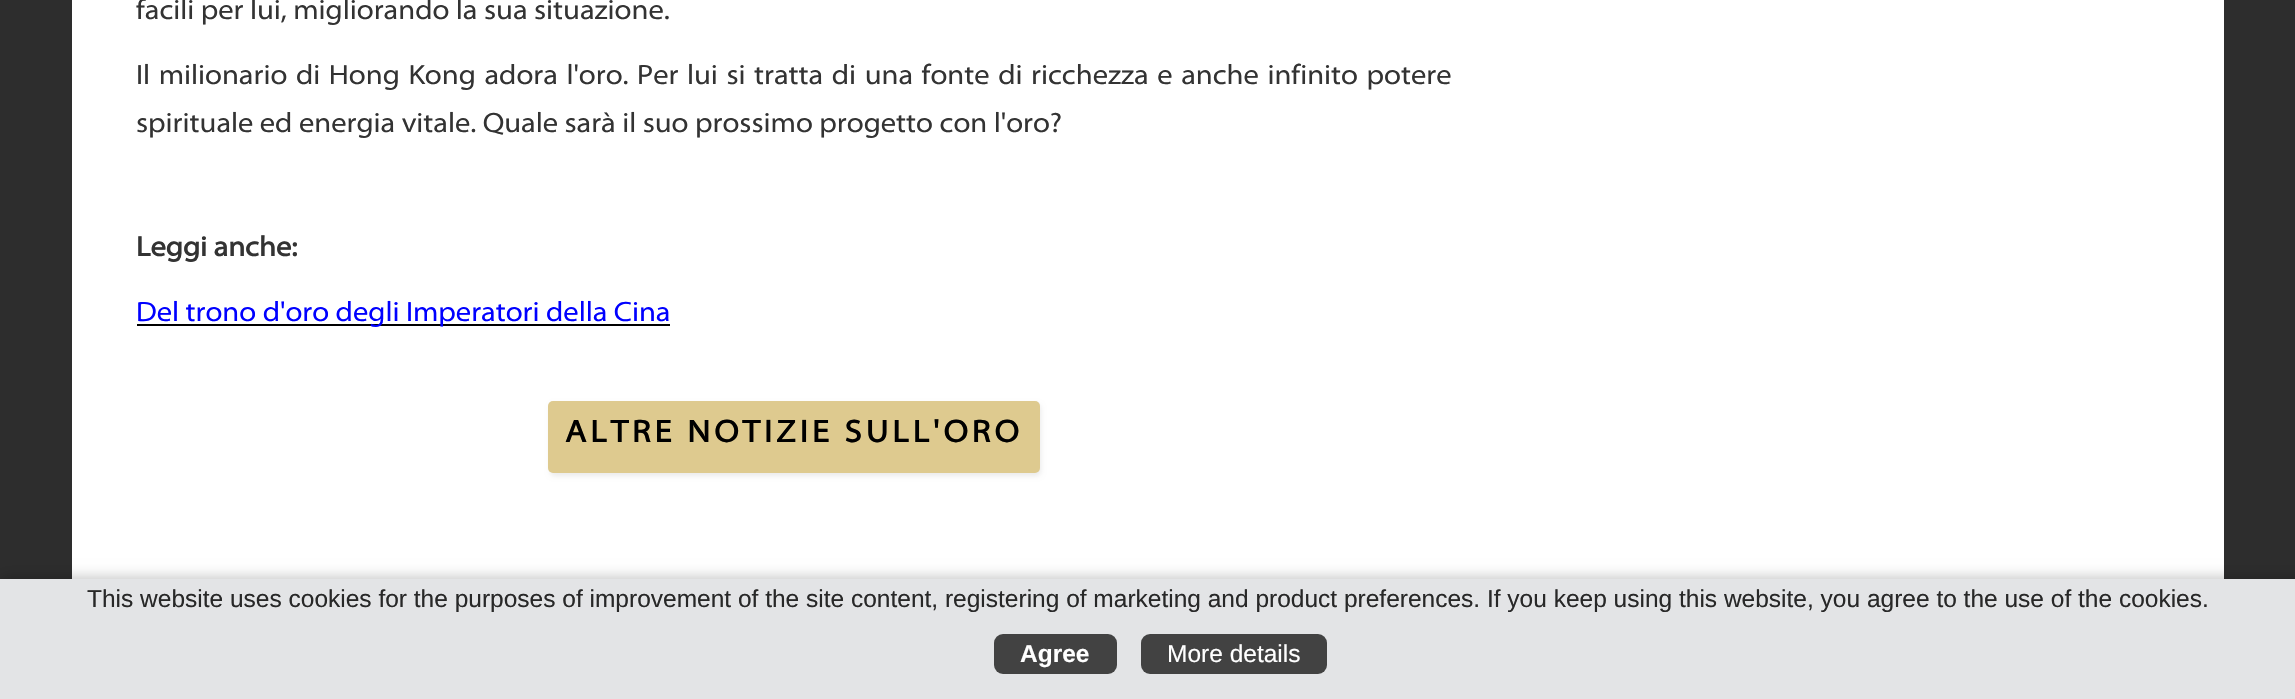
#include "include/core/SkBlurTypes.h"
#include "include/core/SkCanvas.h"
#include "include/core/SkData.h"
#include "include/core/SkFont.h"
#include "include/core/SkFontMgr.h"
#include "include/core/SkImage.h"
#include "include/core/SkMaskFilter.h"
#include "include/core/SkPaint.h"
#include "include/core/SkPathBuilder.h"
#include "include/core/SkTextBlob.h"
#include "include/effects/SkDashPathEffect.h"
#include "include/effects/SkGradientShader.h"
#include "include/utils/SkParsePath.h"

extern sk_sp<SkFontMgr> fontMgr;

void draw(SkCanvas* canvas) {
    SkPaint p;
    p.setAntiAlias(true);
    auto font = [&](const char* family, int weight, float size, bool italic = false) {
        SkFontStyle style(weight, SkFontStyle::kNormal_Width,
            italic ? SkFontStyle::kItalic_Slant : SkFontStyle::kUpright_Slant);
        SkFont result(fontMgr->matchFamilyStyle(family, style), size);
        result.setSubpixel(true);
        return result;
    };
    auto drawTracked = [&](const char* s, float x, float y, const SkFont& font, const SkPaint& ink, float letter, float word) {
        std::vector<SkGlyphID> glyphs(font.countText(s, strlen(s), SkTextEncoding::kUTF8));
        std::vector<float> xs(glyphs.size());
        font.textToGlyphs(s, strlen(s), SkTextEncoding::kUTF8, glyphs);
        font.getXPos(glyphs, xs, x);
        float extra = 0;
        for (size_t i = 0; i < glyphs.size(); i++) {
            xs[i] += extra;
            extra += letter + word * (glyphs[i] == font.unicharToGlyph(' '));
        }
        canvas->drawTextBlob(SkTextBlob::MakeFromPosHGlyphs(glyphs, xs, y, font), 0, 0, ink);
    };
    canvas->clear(0xFF2D2D2D);
    p.setColor(0xFFFFFFFF);
    canvas->drawRect(SkRect::MakeLTRB(72, 0, 2224, 579), p);
    auto font1 = font("Myriad", 400, 28);
    p.setColor(0xFF333333);
    canvas->drawString("facili per lui, migliorando la sua situazione.", 136, 19, font1, p);
    drawTracked("Il milionario di Hong Kong adora l'oro. Per lui si tratta di una fonte di ricchezza e anche infinito potere", 136, 84, font1, p, 0, 2.1f);
    canvas->drawString("spirituale ed energia vitale. Quale sarà il suo prossimo progetto con l'oro?", 136, 132, font1, p);
    auto font2 = font("Myriad", 700, 28);
    canvas->drawString("Leggi anche:", 136, 256, font2, p);
    p.setColor(0xFF000000);
    canvas->drawRect(SkRect::MakeLTRB(137, 324, 670, 326), p);
    p.setColor(0xFF0000FF);
    canvas->drawString("Del trono d'oro degli Imperatori della Cina", 136, 321, font1, p);
    p.setColor(0x14000000);
    p.setMaskFilter(SkMaskFilter::MakeBlur(kNormal_SkBlurStyle, 2.5f));
    canvas->drawRoundRect(SkRect::MakeLTRB(550, 404, 1041, 476), 5, 5, p);
    p.setMaskFilter(nullptr);
    p.setColor(0xFFDECA8F);
    canvas->drawRoundRect(SkRect::MakeLTRB(548, 401, 1040, 473), 5, 5, p);
    auto font3 = font("Myriad", 700, 31.5f);
    p.setColor(0xFF000000);
    drawTracked("ALTRE NOTIZIE SULL'ORO", 565, 442, font3, p, 4.2f, 0);
    p.setColor(0x33000000);
    p.setMaskFilter(SkMaskFilter::MakeBlur(kNormal_SkBlurStyle, 6));
    canvas->drawRect(SkRect::MakeLTRB(2, 576, 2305, 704), p);
    p.setMaskFilter(nullptr);
    p.setColor(0xFFE3E4E6);
    canvas->drawRect(SkRect::MakeLTRB(0, 579, 2295, 699), p);
    auto font4 = font("Liberation Sans", 400, 24.5f);
    p.setColor(0xFF282828);
    canvas->drawString("This website uses cookies for the purposes of improvement of the site content, registering of marketing and product preferences. If you keep using this website, you agree to the use of the cookies.", 87, 607, font4, p);
    p.setColor(0xFF424242);
    canvas->drawRoundRect(SkRect::MakeLTRB(994, 634, 1117, 674), 9, 9, p);
    auto font5 = font("Liberation Sans", 700, 24.5f);
    p.setColor(0xFFFFFFFF);
    canvas->drawString("Agree", 1020, 662, font5, p);
    p.setColor(0xFF424242);
    canvas->drawRoundRect(SkRect::MakeLTRB(1141, 634, 1327, 674), 9, 9, p);
    p.setColor(0xFFFFFFFF);
    canvas->drawString("More details", 1167, 662, font4, p);
}
